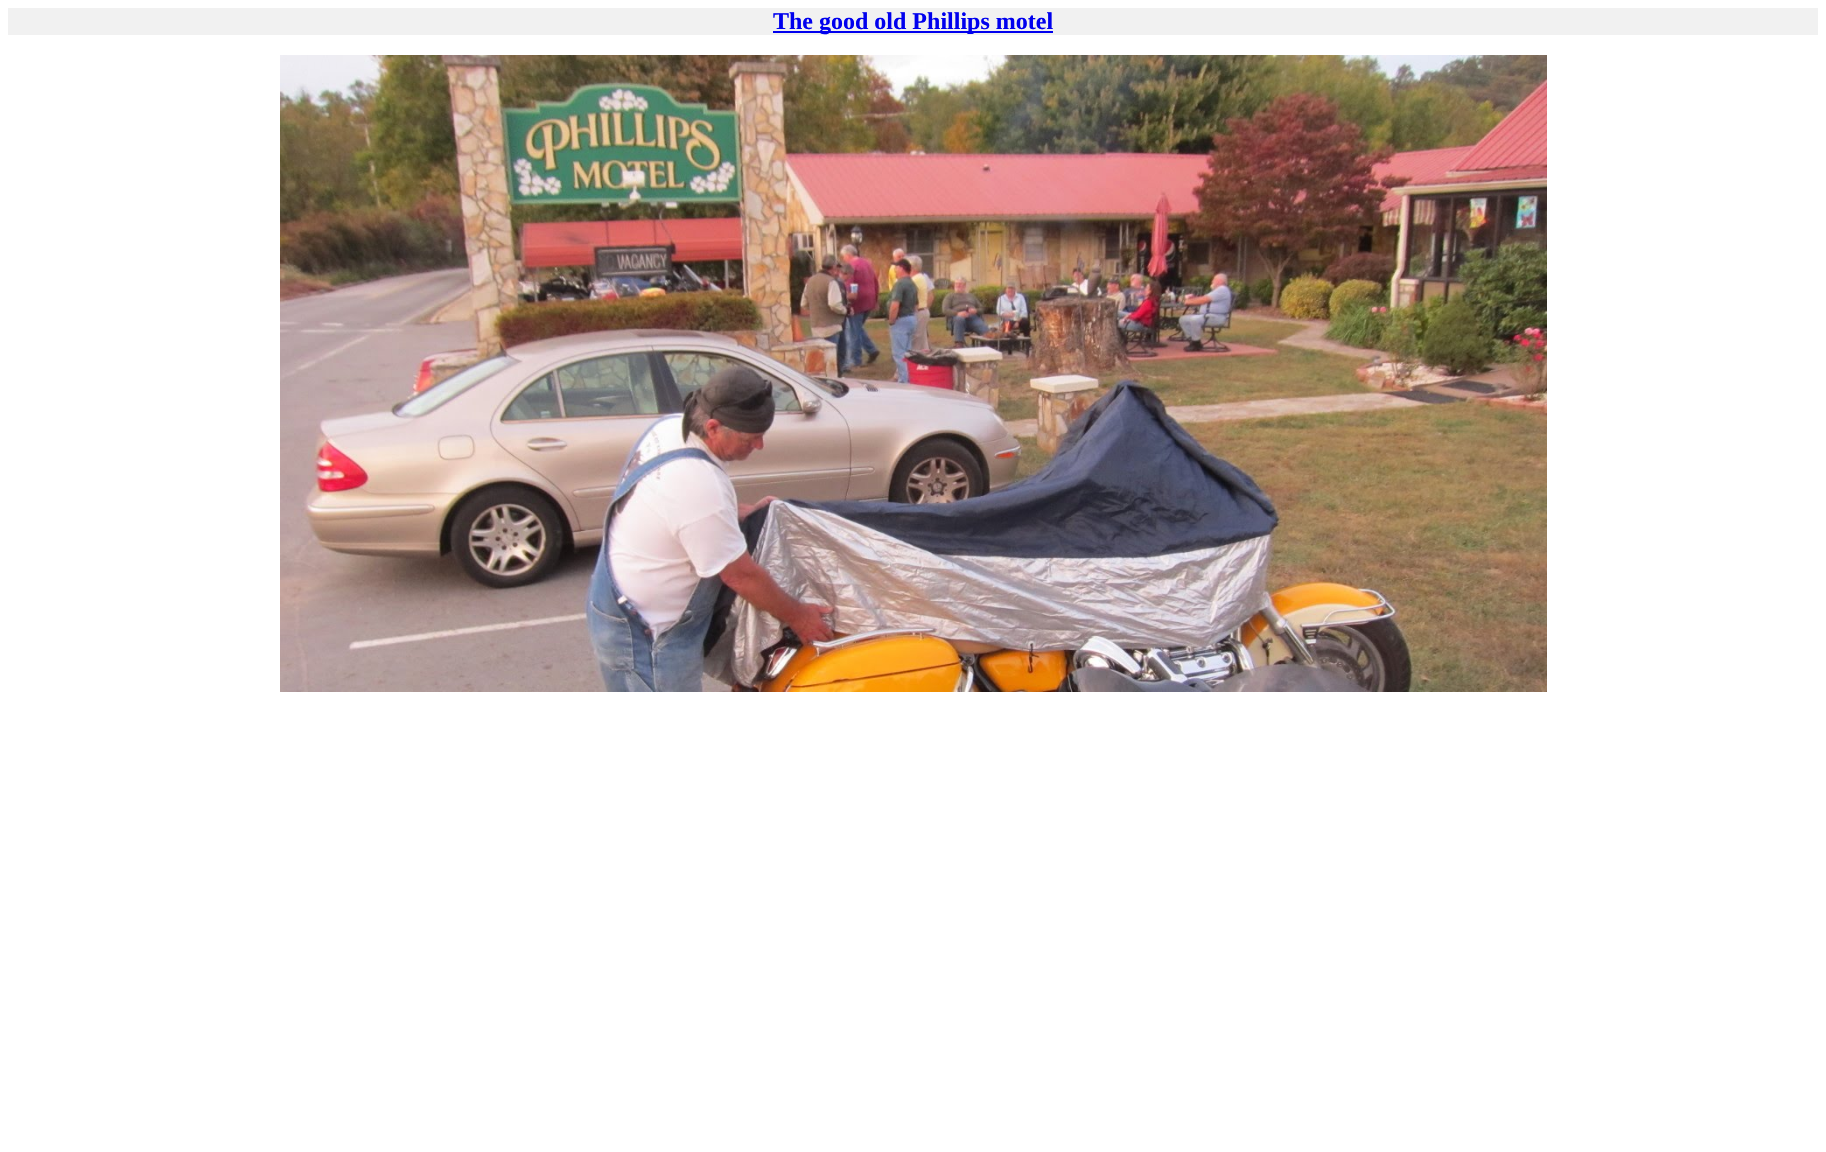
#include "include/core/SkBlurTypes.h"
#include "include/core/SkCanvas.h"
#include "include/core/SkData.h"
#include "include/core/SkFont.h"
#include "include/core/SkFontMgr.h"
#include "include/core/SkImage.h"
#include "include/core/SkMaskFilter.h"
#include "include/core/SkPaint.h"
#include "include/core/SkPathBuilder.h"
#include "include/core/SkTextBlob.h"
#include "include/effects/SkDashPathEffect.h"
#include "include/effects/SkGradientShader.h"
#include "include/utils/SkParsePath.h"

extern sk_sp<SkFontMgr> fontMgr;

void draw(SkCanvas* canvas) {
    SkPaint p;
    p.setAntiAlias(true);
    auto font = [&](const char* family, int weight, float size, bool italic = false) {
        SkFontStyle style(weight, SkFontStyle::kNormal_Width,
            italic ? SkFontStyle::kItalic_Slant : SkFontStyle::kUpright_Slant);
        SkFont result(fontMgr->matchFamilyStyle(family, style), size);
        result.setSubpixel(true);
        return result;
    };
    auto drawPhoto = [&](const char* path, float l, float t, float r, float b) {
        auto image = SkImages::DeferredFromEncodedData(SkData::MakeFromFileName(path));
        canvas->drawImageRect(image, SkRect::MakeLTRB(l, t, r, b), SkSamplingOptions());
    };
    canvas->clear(0xFFFFFFFF);
    p.setColor(0xFFF1F1F1);
    canvas->drawRect(SkRect::MakeLTRB(8, 8, 1818, 35), p);
    p.setColor(0xFF0000EE);
    canvas->drawRect(SkRect::MakeLTRB(773, 31, 1053, 33), p);
    auto font1 = font("Liberation Serif", 700, 24);
    canvas->drawString("The good old Phillips motel", 773, 29, font1, p);
    drawPhoto("media/1.png", 280, 55, 1547, 692);
}
